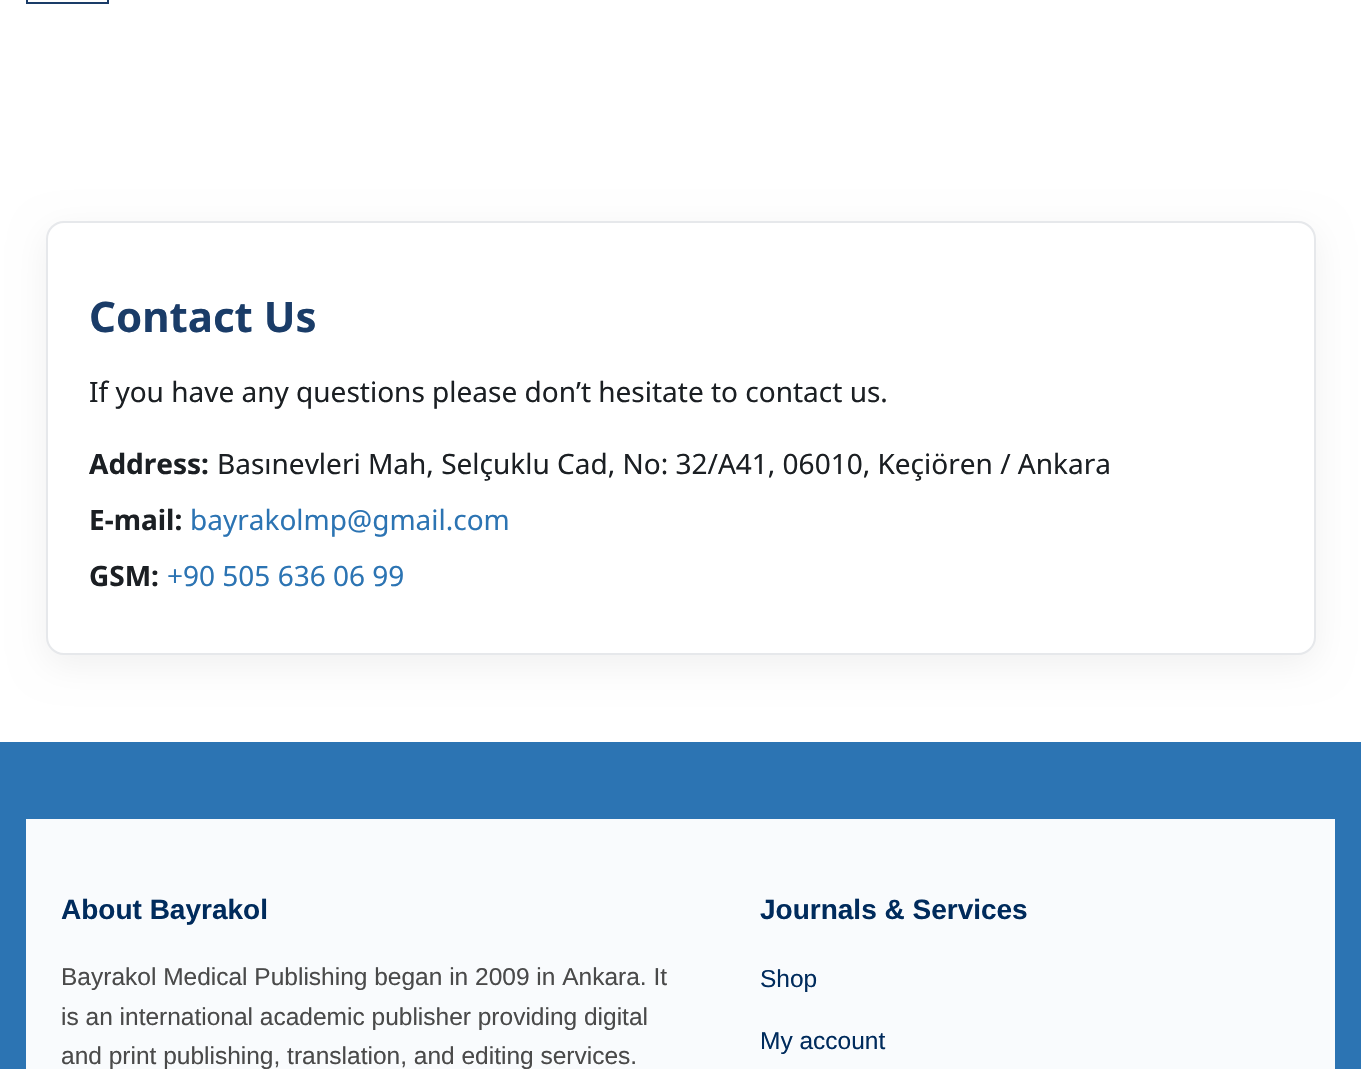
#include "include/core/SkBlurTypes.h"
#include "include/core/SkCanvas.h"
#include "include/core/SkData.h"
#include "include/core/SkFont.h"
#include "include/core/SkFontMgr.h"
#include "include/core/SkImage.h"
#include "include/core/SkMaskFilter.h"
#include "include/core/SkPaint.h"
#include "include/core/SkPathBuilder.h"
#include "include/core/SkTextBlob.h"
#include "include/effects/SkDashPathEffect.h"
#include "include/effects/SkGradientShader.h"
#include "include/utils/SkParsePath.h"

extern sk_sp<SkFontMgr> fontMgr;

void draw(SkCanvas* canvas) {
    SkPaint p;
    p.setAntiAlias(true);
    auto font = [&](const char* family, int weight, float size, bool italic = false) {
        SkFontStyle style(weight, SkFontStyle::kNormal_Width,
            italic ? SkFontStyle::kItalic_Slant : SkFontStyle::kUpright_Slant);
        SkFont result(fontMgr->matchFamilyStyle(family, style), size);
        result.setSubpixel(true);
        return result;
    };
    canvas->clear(0xFFFFFFFF);
    p.setStyle(SkPaint::kStroke_Style);
    p.setStrokeWidth(2);
    p.setColor(0xFF1A3C68);
    canvas->drawRect(SkRect::MakeLTRB(27, -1, 108, 3), p);
    p.setStyle(SkPaint::kFill_Style);
    p.setColor(0x0F000000);
    p.setMaskFilter(SkMaskFilter::MakeBlur(kNormal_SkBlurStyle, 17.5f));
    canvas->drawRoundRect(SkRect::MakeLTRB(46, 231, 1316, 665), 18, 18, p);
    p.setMaskFilter(nullptr);
    p.setColor(0xFFFFFFFF);
    canvas->drawRoundRect(SkRect::MakeLTRB(47, 222, 1315, 654), 17, 17, p);
    p.setStyle(SkPaint::kStroke_Style);
    p.setColor(0xFFE6E8EB);
    canvas->drawRoundRect(SkRect::MakeLTRB(47, 222, 1315, 654), 17, 17, p);
    auto font1 = font("Noto Sans", 700, 42);
    p.setStyle(SkPaint::kFill_Style);
    p.setColor(0xFF1A3C68);
    canvas->drawString("Contact Us", 89, 332, font1, p);
    auto font2 = font("Noto Sans", 400, 28);
    p.setColor(0xFF1B1F23);
    canvas->drawString("If you have any questions please don’t hesitate to contact us.", 89, 402, font2, p);
    auto font3 = font("Noto Sans", 700, 28);
    canvas->drawString("Address:", 89, 474, font3, p);
    canvas->drawString("Basınevleri Mah, Selçuklu Cad, No: 32/A41, 06010, Keçiören / Ankara", 217, 474, font2, p);
    canvas->drawString("E-mail:", 89, 530, font3, p);
    p.setColor(0xFF2C74B3);
    canvas->drawString("bayrakolmp@gmail.com", 190, 530, font2, p);
    p.setColor(0xFF1B1F23);
    canvas->drawString("GSM:", 89, 586, font3, p);
    p.setColor(0xFF2C74B3);
    canvas->drawString("+90 505 636 06 99", 167, 586, font2, p);
    canvas->drawRect(SkRect::MakeLTRB(0, 742, 1361, 1069), p);
    p.setColor(0xFFF9FBFD);
    canvas->drawRect(SkRect::MakeLTRB(26, 819, 1335, 1069), p);
    auto font4 = font("Liberation Sans", 700, 28);
    p.setColor(0xFF002B5C);
    canvas->drawString("About Bayrakol", 61, 919, font4, p);
    auto font5 = font("Liberation Sans", 400, 24.5f);
    p.setColor(0xFF4A4A4A);
    {
        const struct { const char* s; float x, y; } items[] = {
            {"Bayrakol Medical Publishing began in 2009 in Ankara. It", 61, 985},
            {"is an international academic publisher providing digital", 61, 1025},
            {"and print publishing, translation, and editing services.", 61, 1064},
        };
        for (auto [s, x, y] : items) {
            canvas->drawString(s, x, y, font5, p);
        }
    }
    p.setColor(0xFF002B5C);
    canvas->drawString("Journals & Services", 760, 919, font4, p);
    canvas->drawString("Shop", 760, 987, font5, p);
    canvas->drawString("My account", 760, 1049, font5, p);
}
